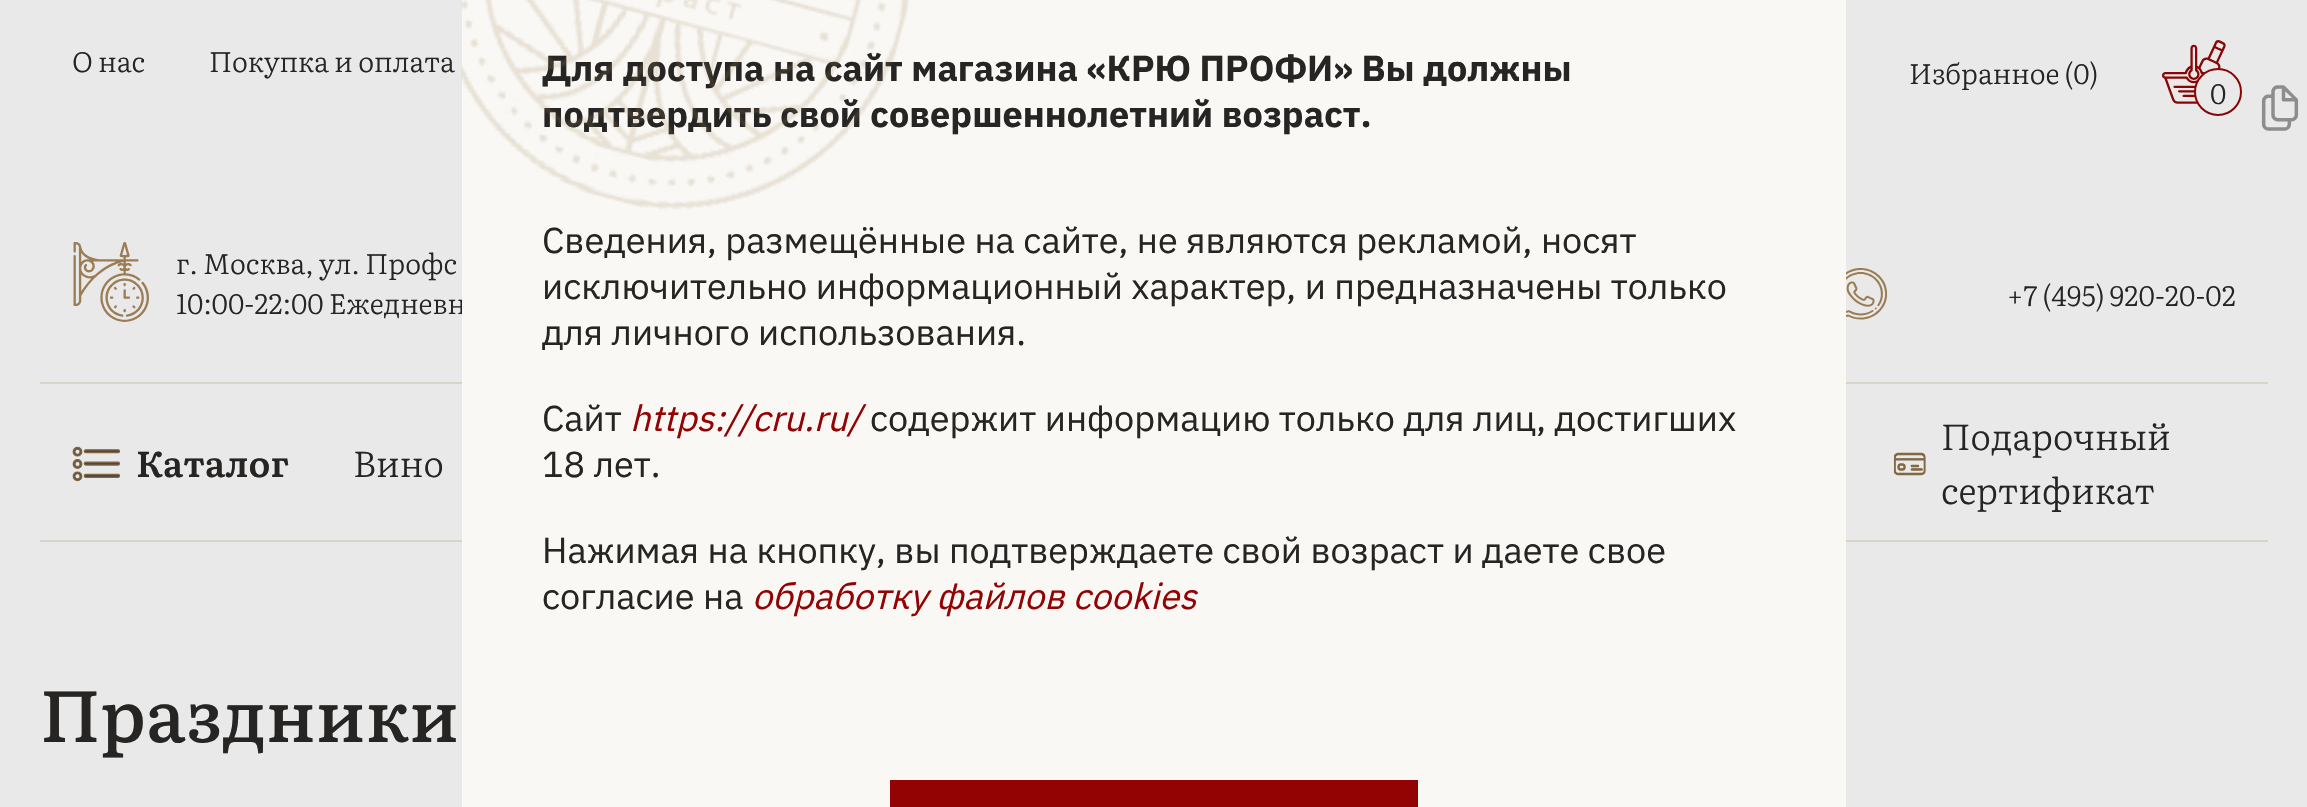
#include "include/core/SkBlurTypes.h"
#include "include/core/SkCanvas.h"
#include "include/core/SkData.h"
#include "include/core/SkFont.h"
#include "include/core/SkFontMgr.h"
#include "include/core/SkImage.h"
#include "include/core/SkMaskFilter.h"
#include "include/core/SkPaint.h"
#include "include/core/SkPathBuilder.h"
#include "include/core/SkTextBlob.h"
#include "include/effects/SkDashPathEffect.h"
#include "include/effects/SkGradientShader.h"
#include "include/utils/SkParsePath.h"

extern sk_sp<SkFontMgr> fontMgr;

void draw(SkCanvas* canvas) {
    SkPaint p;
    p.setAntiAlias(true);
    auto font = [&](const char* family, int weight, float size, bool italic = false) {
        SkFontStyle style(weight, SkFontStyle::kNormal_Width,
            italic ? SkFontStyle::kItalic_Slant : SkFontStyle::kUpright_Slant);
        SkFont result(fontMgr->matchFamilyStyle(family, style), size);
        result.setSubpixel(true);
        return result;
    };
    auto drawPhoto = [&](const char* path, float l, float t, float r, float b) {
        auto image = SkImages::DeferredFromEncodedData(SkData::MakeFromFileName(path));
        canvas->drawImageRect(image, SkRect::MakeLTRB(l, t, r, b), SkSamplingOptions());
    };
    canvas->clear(0xFFE9E9E9);
    auto font1 = font("Literata", 300, 28);
    p.setColor(0xFF262524);
    canvas->drawString("О нас", 72, 72, font1, p);
    canvas->drawString("Покупка и оплата", 209, 72, font1, p);
    drawPhoto("media/1.png", 73, 242, 149, 322);
    {
        const struct { const char* s; float x, y; } items[] = {
            {"г. Москва, ул. Профс", 176, 274},
            {"10:00-22:00 Ежедневн", 176, 314},
            {"Избранное (0)", 1909, 84},
        };
        for (auto [s, x, y] : items) {
            canvas->drawString(s, x, y, font1, p);
        }
    }
    drawPhoto("media/2.png", 2162, 40, 2226, 104);
    p.setColor(0xFFE9E9E9);
    canvas->drawCircle(2218, 92, 23, p);
    p.setStyle(SkPaint::kStroke_Style);
    p.setStrokeWidth(2);
    p.setColor(0xFF880606);
    canvas->drawCircle(2218, 92, 23, p);
    p.setStyle(SkPaint::kFill_Style);
    p.setColor(0xFF262524);
    canvas->drawString("0", 2210, 104, font1, p);
    drawPhoto("media/3.png", 1846, 268, 1888, 320);
    canvas->drawString("+7 (495) 920-20-02", 2007, 306, font1, p);
    p.setColor(0xFFD7D4C9);
    canvas->drawRect(SkRect::MakeLTRB(40, 382, 2268, 384), p);
    canvas->drawRect(SkRect::MakeLTRB(40, 540, 2268, 542), p);
    drawPhoto("media/4.png", 72, 446, 120, 482);
    auto font2 = font("Literata", 600, 36);
    p.setColor(0xFF262524);
    canvas->drawString("Каталог", 136, 477, font2, p);
    auto font3 = font("Literata", 300, 36);
    canvas->drawString("Вино", 353, 477, font3, p);
    canvas->drawString("Подарочный", 1941, 450, font3, p);
    drawPhoto("media/5.png", 1894, 452, 1926, 476);
    canvas->drawString("сертификат", 1941, 504, font3, p);
    p.setColor(0xFFF9F8F5);
    canvas->drawRect(SkRect::MakeLTRB(462, 0, 1846, 807), p);
    auto font4 = font("IBM Plex Sans", 700, 36);
    p.setColor(0xFF262524);
    canvas->drawString("Для доступа на сайт магазина «КРЮ ПРОФИ» Вы должны", 542, 81, font4, p);
    canvas->drawString("подтвердить свой совершеннолетний возраст.", 542, 127, font4, p);
    drawPhoto("media/6.png", 461, 0, 910, 210);
    auto font5 = font("IBM Plex Sans", 400, 36);
    {
        const struct { const char* s; float x, y; } items[] = {
            {"Сведения, размещённые на сайте, не являются рекламой, носят", 542, 253},
            {"исключительно информационный характер, и предназначены только", 542, 299},
            {"для личного использования.", 542, 345},
            {"Сайт", 542, 431},
        };
        for (auto [s, x, y] : items) {
            canvas->drawString(s, x, y, font5, p);
        }
    }
    auto font6 = font("IBM Plex Sans", 400, 36, true);
    p.setColor(0xFF930303);
    canvas->drawString("https://cru.ru/", 630, 431, font6, p);
    p.setColor(0xFF262524);
    {
        const struct { const char* s; float x, y; } items[] = {
            {"содержит информацию только для лиц, достигших", 870, 431},
            {"18 лет.", 542, 477},
            {"Нажимая на кнопку, вы подтверждаете свой возраст и даете свое", 542, 563},
            {"согласие на", 542, 609},
        };
        for (auto [s, x, y] : items) {
            canvas->drawString(s, x, y, font5, p);
        }
    }
    p.setColor(0xFF930303);
    canvas->drawString("обработку файлов cookies", 752, 609, font6, p);
    canvas->drawRect(SkRect::MakeLTRB(890, 780, 1418, 807), p);
    drawPhoto("media/7.png", 2261, 85, 2299, 131);
    auto font7 = font("Literata", 500, 72);
    p.setColor(0xFF262524);
    canvas->drawString("Праздники", 40, 742, font7, p);
}
